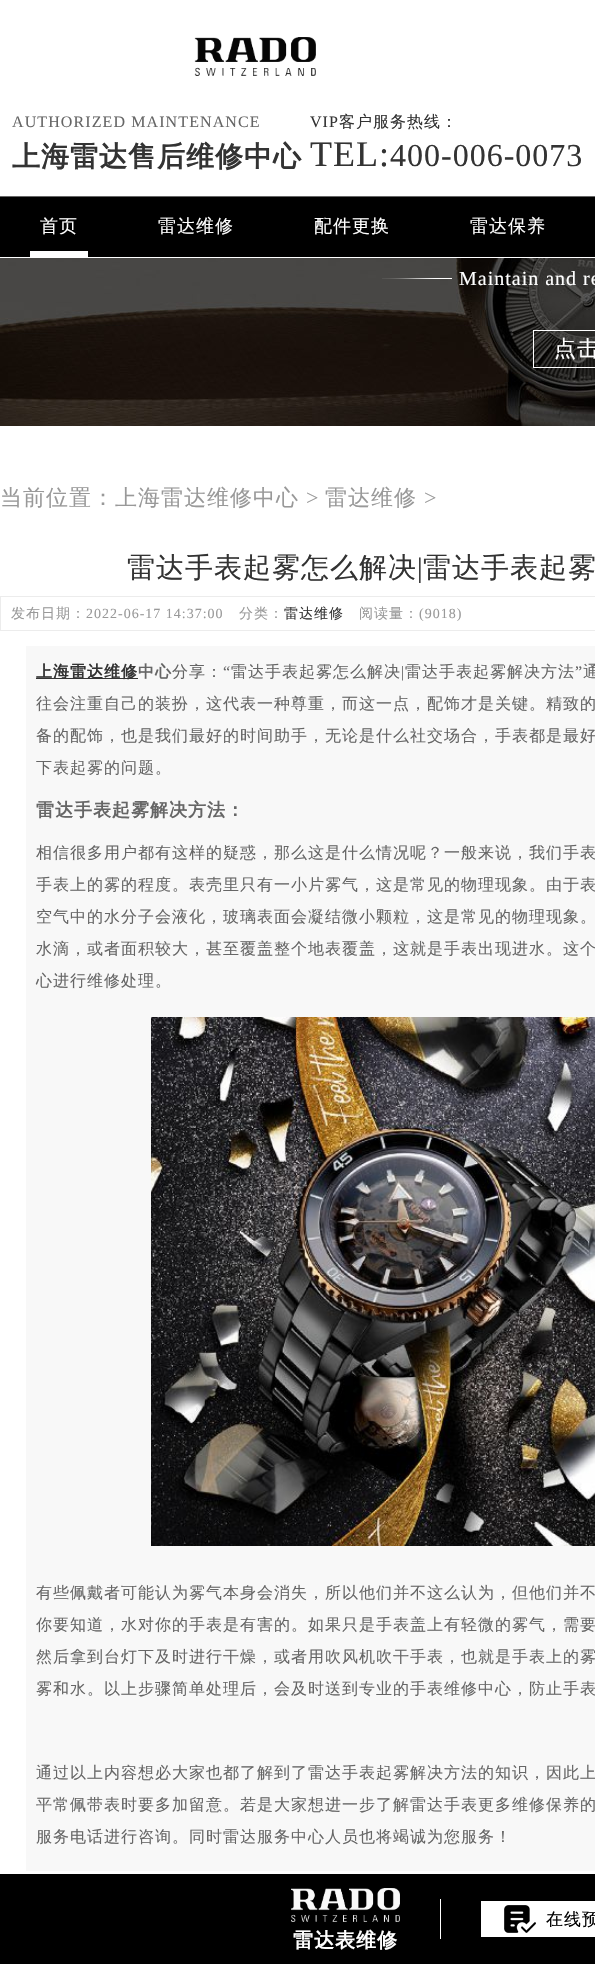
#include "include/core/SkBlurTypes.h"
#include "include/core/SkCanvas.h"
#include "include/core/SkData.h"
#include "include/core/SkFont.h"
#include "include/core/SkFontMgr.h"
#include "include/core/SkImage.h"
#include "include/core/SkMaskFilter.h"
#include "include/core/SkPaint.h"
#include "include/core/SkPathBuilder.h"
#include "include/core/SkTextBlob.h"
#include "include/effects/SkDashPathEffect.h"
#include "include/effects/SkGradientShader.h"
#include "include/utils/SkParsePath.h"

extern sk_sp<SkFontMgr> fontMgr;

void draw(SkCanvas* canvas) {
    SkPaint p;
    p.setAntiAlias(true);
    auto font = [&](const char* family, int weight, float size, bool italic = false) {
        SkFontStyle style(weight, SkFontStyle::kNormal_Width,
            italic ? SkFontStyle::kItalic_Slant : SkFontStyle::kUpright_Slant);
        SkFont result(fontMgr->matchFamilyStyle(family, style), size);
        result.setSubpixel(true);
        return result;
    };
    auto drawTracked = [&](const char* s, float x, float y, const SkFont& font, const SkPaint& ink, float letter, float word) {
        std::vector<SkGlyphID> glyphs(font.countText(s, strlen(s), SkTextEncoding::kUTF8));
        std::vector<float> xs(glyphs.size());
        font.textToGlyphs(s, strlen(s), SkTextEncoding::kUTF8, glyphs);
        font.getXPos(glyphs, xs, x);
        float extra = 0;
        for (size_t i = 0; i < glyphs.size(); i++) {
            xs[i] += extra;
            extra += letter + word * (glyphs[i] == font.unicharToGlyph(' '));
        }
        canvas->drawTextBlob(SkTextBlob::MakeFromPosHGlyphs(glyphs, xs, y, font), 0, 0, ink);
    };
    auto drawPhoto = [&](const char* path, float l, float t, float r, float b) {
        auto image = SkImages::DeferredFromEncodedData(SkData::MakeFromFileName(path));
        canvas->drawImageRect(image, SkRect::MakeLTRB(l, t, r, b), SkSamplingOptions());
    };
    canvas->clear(0xFFFFFFFF);
    drawPhoto("media/1.png", 194, 37, 316, 76);
    auto font1 = font("Liberation Serif", 400, 16);
    p.setColor(0xFF666666);
    drawTracked("AUTHORIZED MAINTENANCE", 12, 127, font1, p, 1.1f, 0);
    auto font2 = font("WenQuanYi Zen Hei", 700, 28);
    p.setColor(0xFF333333);
    drawTracked("上海雷达售后维修中心", 12, 166, font2, p, 1, 0);
    drawTracked("VIP", 310, 127, font1, p, 1, 0);
    auto font3 = font("WenQuanYi Zen Hei", 500, 16);
    drawTracked("客户服务热线：", 339, 127, font3, p, 1, 0);
    auto font4 = font("Liberation Serif", 400, 36);
    drawTracked("TEL:", 310, 166, font4, p, 1, 0);
    auto font5 = font("Liberation Serif", 400, 32);
    drawTracked("400-006-0073", 390, 166, font5, p, 1, 0);
    {
        const struct { float l, t, r, b; SkColor color; } items[] = {
            {0, 197, 595, 257, 0xFF000000},
            {0, 196, 595, 197, 0xFF666666},
            {30, 251, 88, 257, 0xFFFFFFFF},
        };
        for (auto [l, t, r, b, color] : items) {
            p.setColor(color);
            canvas->drawRect(SkRect::MakeLTRB(l, t, r, b), p);
        }
    }
    auto font6 = font("WenQuanYi Zen Hei", 500, 18);
    {
        const struct { const char* s; float x, y; } items[] = {
            {"首页", 40, 232},
            {"雷达维修", 158, 232},
            {"配件更换", 314, 232},
            {"雷达保养", 470, 232},
        };
        for (auto [s, x, y] : items) {
            drawTracked(s, x, y, font6, p, 1, 0);
        }
    }
    drawPhoto("media/2.png", 0, 258, 595, 426);
    drawPhoto("media/3.png", 382, 278, 452, 279);
    auto font7 = font("Liberation Serif", 400, 20);
    drawTracked("Maintain and re", 459, 285, font7, p, 1, 0);
    p.setStyle(SkPaint::kStroke_Style);
    p.setStrokeWidth(1);
    canvas->drawRect(SkRect::MakeLTRB(533.5f, 330.5f, 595.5f, 367.5f), p);
    auto font8 = font("WenQuanYi Zen Hei", 500, 22);
    p.setStyle(SkPaint::kFill_Style);
    drawTracked("点击", 554, 356, font8, p, 1, 0);
    p.setColor(0xFF999999);
    drawTracked("当前位置：上海雷达维修中心", 0, 505, font8, p, 1, 0);
    auto font9 = font("Liberation Serif", 400, 22);
    drawTracked(">", 306, 505, font9, p, 1, 0);
    drawTracked("雷达维修", 325, 505, font8, p, 1, 0);
    drawTracked(">", 424, 505, font9, p, 1, 0);
    auto font10 = font("WenQuanYi Zen Hei", 500, 28);
    p.setColor(0xFF333333);
    drawTracked("雷达手表起雾怎么解决", 127, 577, font10, p, 1, 0);
    auto font11 = font("Liberation Serif", 400, 28);
    drawTracked("|", 417, 577, font11, p, 1, 0);
    drawTracked("雷达手表起雾", 423, 577, font10, p, 1, 0);
    p.setStyle(SkPaint::kStroke_Style);
    p.setColor(0xFFECECEC);
    canvas->drawRect(SkRect::MakeLTRB(0.5f, 596.5f, 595.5f, 630.5f), p);
    auto font12 = font("WenQuanYi Zen Hei", 500, 14);
    p.setStyle(SkPaint::kFill_Style);
    p.setColor(0xFF999999);
    drawTracked("发布日期：", 11, 618, font12, p, 1, 0);
    auto font13 = font("Liberation Serif", 400, 14);
    drawTracked("2022-06-17 14:37:00", 86, 618, font13, p, 1, 0);
    drawTracked("分类：", 239, 618, font12, p, 1, 0);
    p.setColor(0xFF333333);
    drawTracked("雷达维修", 284, 618, font12, p, 1, 0);
    p.setColor(0xFF999999);
    drawTracked("阅读量：", 359, 618, font12, p, 1, 0);
    drawTracked("(9018)", 419, 618, font13, p, 1, 0);
    p.setColor(0xFFF8F8F8);
    canvas->drawRect(SkRect::MakeLTRB(26, 646, 595, 1871), p);
    p.setColor(0xFF333333);
    canvas->drawRect(SkRect::MakeLTRB(36, 678, 138, 679), p);
    auto font14 = font("WenQuanYi Zen Hei", 700, 16);
    drawTracked("上海雷达维修", 36, 677, font14, p, 1, 0);
    p.setColor(0xFF666666);
    drawTracked("中心", 138, 677, font14, p, 1, 0);
    drawTracked("分享：", 172, 677, font3, p, 1, 0);
    drawTracked("“", 223, 677, font1, p, 1, 0);
    drawTracked("雷达手表起雾怎么解决", 231, 677, font3, p, 1, 0);
    drawTracked("|", 401, 677, font1, p, 1, 0);
    drawTracked("雷达手表起雾解决方法", 405, 677, font3, p, 1, 0);
    drawTracked("”", 575, 677, font1, p, 1, 0);
    {
        const struct { const char* s; float x, y; } items[] = {
            {"通", 583, 677},
            {"往会注重自己的装扮，这代表一种尊重，而这一点，配饰才是关键。精致的", 36, 709},
            {"备的配饰，也是我们最好的时间助手，无论是什么社交场合，手表都是最好", 36, 741},
            {"下表起雾的问题。", 36, 773},
        };
        for (auto [s, x, y] : items) {
            drawTracked(s, x, y, font3, p, 1, 0);
        }
    }
    auto font15 = font("WenQuanYi Zen Hei", 700, 18);
    drawTracked("雷达手表起雾解决方法：", 36, 816, font15, p, 1, 0);
    {
        const struct { const char* s; float x, y; } items[] = {
            {"相信很多用户都有这样的疑惑，那么这是什么情况呢？一般来说，我们手表", 36, 858},
            {"手表上的雾的程度。表壳里只有一小片雾气，这是常见的物理现象。由于表", 36, 890},
            {"空气中的水分子会液化，玻璃表面会凝结微小颗粒，这是常见的物理现象。", 36, 922},
            {"水滴，或者面积较大，甚至覆盖整个地表覆盖，这就是手表出现进水。这个", 36, 954},
            {"心进行维修处理。", 36, 986},
        };
        for (auto [s, x, y] : items) {
            drawTracked(s, x, y, font3, p, 1, 0);
        }
    }
    drawPhoto("media/4.png", 151, 1017, 595, 1546);
    {
        const struct { const char* s; float x, y; } items[] = {
            {"有些佩戴者可能认为雾气本身会消失，所以他们并不这么认为，但他们并不", 36, 1598},
            {"你要知道，水对你的手表是有害的。如果只是手表盖上有轻微的雾气，需要", 36, 1630},
            {"然后拿到台灯下及时进行干燥，或者用吹风机吹干手表，也就是手表上的雾", 36, 1662},
            {"雾和水。以上步骤简单处理后，会及时送到专业的手表维修中心，防止手表", 36, 1694},
            {"通过以上内容想必大家也都了解到了雷达手表起雾解决方法的知识，因此上", 36, 1778},
            {"平常佩带表时要多加留意。若是大家想进一步了解雷达手表更多维修保养的", 36, 1810},
            {"服务电话进行咨询。同时雷达服务中心人员也将竭诚为您服务！", 36, 1842},
        };
        for (auto [s, x, y] : items) {
            drawTracked(s, x, y, font3, p, 1, 0);
        }
    }
    {
        const struct { float l, t, r, b; SkColor color; } items[] = {
            {0, 1874, 595, 1964, 0xFF000000},
            {440, 1899, 441, 1939, 0xFFFFFFFF},
            {481, 1901, 595, 1937, 0xFFFFFFFF},
        };
        for (auto [l, t, r, b, color] : items) {
            p.setColor(color);
            canvas->drawRect(SkRect::MakeLTRB(l, t, r, b), p);
        }
    }
    drawPhoto("media/5.png", 504, 1905, 536, 1933);
    auto font16 = font("WenQuanYi Zen Hei", 500, 17);
    p.setColor(0xFF000000);
    drawTracked("在线预", 546, 1925, font16, p, 1, 0);
    drawPhoto("media/6.png", 291, 1888, 400, 1922);
    auto font17 = font("WenQuanYi Zen Hei", 700, 20);
    p.setColor(0xFFFFFFFF);
    drawTracked("雷达表维修", 293, 1947, font17, p, 1, 0);
}
